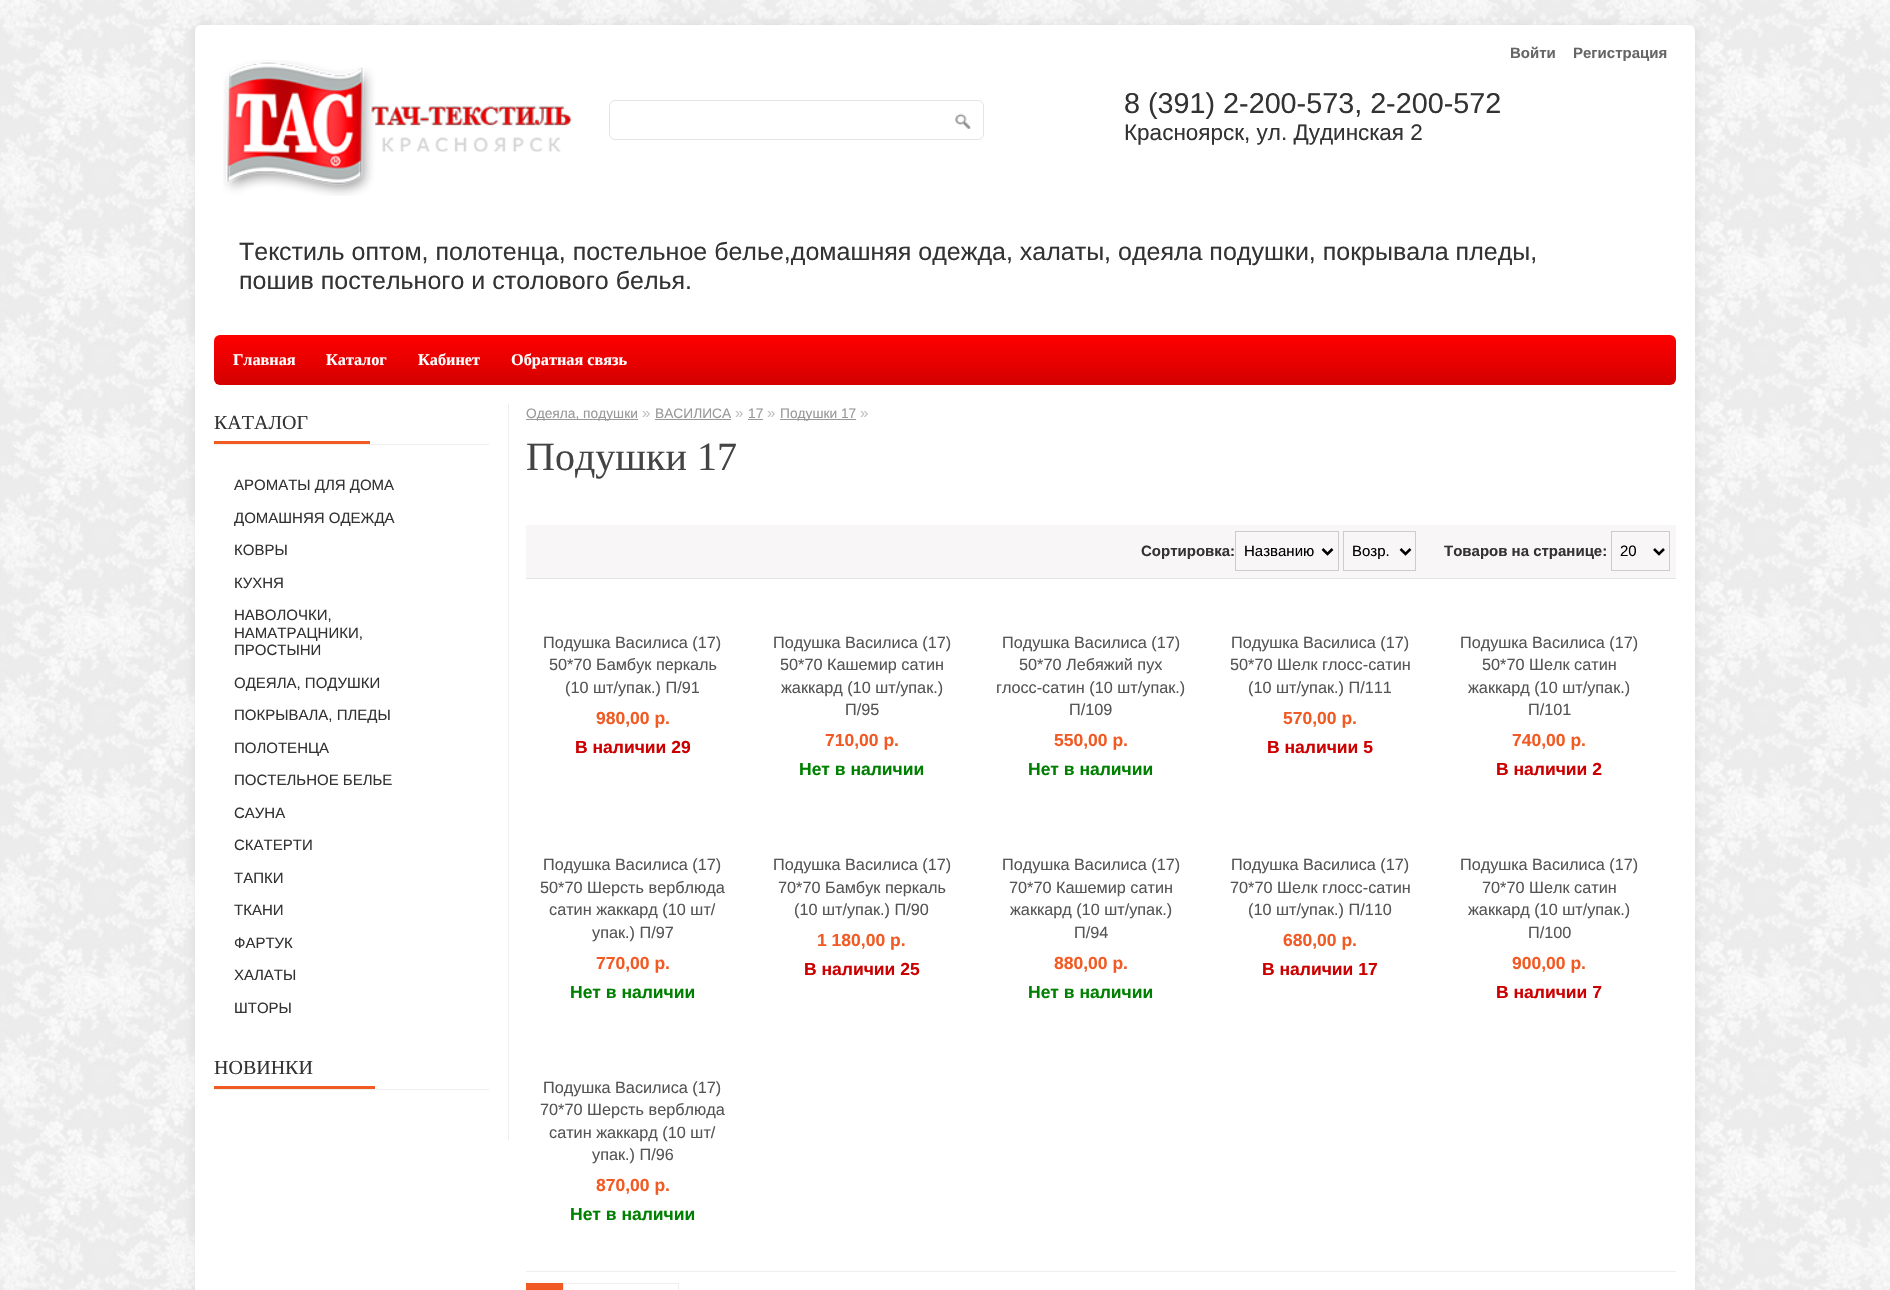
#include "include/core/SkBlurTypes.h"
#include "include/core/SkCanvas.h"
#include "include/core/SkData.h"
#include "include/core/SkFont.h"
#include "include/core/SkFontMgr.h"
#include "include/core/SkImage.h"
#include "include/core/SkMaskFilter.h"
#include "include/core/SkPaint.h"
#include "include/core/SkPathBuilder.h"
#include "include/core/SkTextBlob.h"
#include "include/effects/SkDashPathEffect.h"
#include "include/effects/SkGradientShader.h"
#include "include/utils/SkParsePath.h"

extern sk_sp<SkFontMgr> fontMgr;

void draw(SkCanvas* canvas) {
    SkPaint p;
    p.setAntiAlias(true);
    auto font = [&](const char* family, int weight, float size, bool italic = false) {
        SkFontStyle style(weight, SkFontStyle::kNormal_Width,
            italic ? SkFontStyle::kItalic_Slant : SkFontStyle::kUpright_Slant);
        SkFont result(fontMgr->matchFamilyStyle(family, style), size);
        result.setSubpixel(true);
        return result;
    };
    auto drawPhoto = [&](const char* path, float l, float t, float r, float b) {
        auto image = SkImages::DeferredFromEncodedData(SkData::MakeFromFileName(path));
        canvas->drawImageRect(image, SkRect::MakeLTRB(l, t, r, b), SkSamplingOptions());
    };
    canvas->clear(0xFFFFFFFF);
    drawPhoto("media/1.png", 0, 0, 1890, 1290);
    p.setColor(0x14000000);
    p.setMaskFilter(SkMaskFilter::MakeBlur(kNormal_SkBlurStyle, 5));
    canvas->drawRoundRect(SkRect::MakeLTRB(195, 25, 1695, 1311), 6, 6, p);
    p.setMaskFilter(nullptr);
    p.setColor(0xFFFFFFFF);
    canvas->drawPath(SkPathBuilder().moveTo(201, 25).lineTo(1689, 25).cubicTo(1692.5f, 25, 1695, 27.5f, 1695, 31).lineTo(1695, 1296).lineTo(195, 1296).lineTo(195, 31).cubicTo(195, 27.5f, 197.5f, 25, 201, 25).close().detach(), p);
    auto font1 = font("Liberation Sans", 700, 15);
    p.setColor(0xFF666666);
    canvas->drawString("Войти", 1510, 58, font1, p);
    canvas->drawString("Регистрация", 1573, 58, font1, p);
    drawPhoto("media/2.png", 223, 60, 572, 196);
    p.setStyle(SkPaint::kStroke_Style);
    p.setStrokeWidth(1);
    p.setColor(0xFFE4E4E4);
    canvas->drawRoundRect(SkRect::MakeLTRB(609.5f, 100.5f, 983.5f, 139.5f), 5.5f, 5.5f, p);
    drawPhoto("media/3.png", 955, 113, 971, 129);
    auto font2 = font("Liberation Sans", 400, 28.75f);
    p.setStyle(SkPaint::kFill_Style);
    p.setColor(0xFF333333);
    canvas->drawString("8 (391) 2-200-573, 2-200-572", 1124, 113, font2, p);
    auto font3 = font("Liberation Sans", 400, 22.5f);
    canvas->drawString("Красноярск, ул. Дудинская 2", 1124, 140, font3, p);
    auto font4 = font("Liberation Sans", 400, 25);
    canvas->drawString("Текстиль оптом, полотенца, постельное белье,домашняя одежда, халаты, одеяла подушки, покрывала пледы,", 239, 260, font4, p);
    canvas->drawString("пошив постельного и столового белья.", 239, 289, font4, p);
    {
        const SkColor colors[] = {0xFFD30000, 0xFFFF0000};
        const float stops[] = {0, 1};
        const SkPoint ends[] = {{945, 385}, {945, 335}};
        p.setShader(SkGradientShader::MakeLinear(ends, colors, stops, 2, SkTileMode::kClamp));
        p.setAlpha(255);
    }
    canvas->drawRoundRect(SkRect::MakeLTRB(214, 335, 1676, 385), 6, 6, p);
    auto font5 = font("Liberation Serif", 700, 16.25f);
    p.setShader(nullptr);
    p.setColor(0xFFFFFFFF);
    {
        const struct { const char* s; float x, y; } items[] = {
            {"Главная", 233, 365},
            {"Каталог", 326, 365},
            {"Кабинет", 418, 365},
            {"Обратная связь", 511, 365},
        };
        for (auto [s, x, y] : items) {
            canvas->drawString(s, x, y, font5, p);
        }
    }
    {
        const struct { float l, t, r, b; SkColor color; } items[] = {
            {508, 404, 509, 1140, 0xFFEEEEEE},
            {214, 444, 489, 445, 0xFFEEEEEE},
            {214, 441, 370, 444, 0xFFF15A23},
        };
        for (auto [l, t, r, b, color] : items) {
            p.setColor(color);
            canvas->drawRect(SkRect::MakeLTRB(l, t, r, b), p);
        }
    }
    auto font6 = font("Liberation Serif", 400, 20);
    p.setColor(0xFF333333);
    canvas->drawString("КАТАЛОГ", 214, 429, font6, p);
    auto font7 = font("Liberation Sans", 400, 15);
    {
        const struct { const char* s; float x, y; } items[] = {
            {"АРОМАТЫ ДЛЯ ДОМА", 234, 490},
            {"ДОМАШНЯЯ ОДЕЖДА", 234, 523},
            {"КОВРЫ", 234, 555},
            {"КУХНЯ", 234, 588},
            {"НАВОЛОЧКИ,", 234, 620},
            {"НАМАТРАЦНИКИ,", 234, 638},
            {"ПРОСТЫНИ", 234, 655},
            {"ОДЕЯЛА, ПОДУШКИ", 234, 688},
            {"ПОКРЫВАЛА, ПЛЕДЫ", 234, 720},
            {"ПОЛОТЕНЦА", 234, 753},
            {"ПОСТЕЛЬНОЕ БЕЛЬЕ", 234, 785},
            {"САУНА", 234, 818},
            {"СКАТЕРТИ", 234, 850},
            {"ТАПКИ", 234, 883},
            {"ТКАНИ", 234, 915},
            {"ФАРТУК", 234, 948},
            {"ХАЛАТЫ", 234, 980},
            {"ШТОРЫ", 234, 1013},
        };
        for (auto [s, x, y] : items) {
            canvas->drawString(s, x, y, font7, p);
        }
    }
    p.setColor(0xFFEEEEEE);
    canvas->drawRect(SkRect::MakeLTRB(214, 1089, 489, 1090), p);
    p.setColor(0xFFF15A23);
    canvas->drawRect(SkRect::MakeLTRB(214, 1086, 375, 1089), p);
    p.setColor(0xFF333333);
    canvas->drawString("НОВИНКИ", 214, 1074, font6, p);
    p.setColor(0xFF999999);
    canvas->drawRect(SkRect::MakeLTRB(526, 419, 638, 420), p);
    auto font8 = font("Liberation Sans", 400, 13.75f);
    canvas->drawString("Одеяла, подушки", 526, 418, font8, p);
    p.setColor(0xFFC2C2C2);
    canvas->drawString("»", 642, 418, font7, p);
    p.setColor(0xFF999999);
    canvas->drawString("ВАСИЛИСА", 655, 418, font8, p);
    canvas->drawRect(SkRect::MakeLTRB(655, 419, 731, 420), p);
    p.setColor(0xFFC2C2C2);
    canvas->drawString("»", 735, 418, font7, p);
    p.setColor(0xFF999999);
    canvas->drawString("17", 748, 418, font8, p);
    canvas->drawRect(SkRect::MakeLTRB(748, 419, 763, 420), p);
    p.setColor(0xFFC2C2C2);
    canvas->drawString("»", 767, 418, font7, p);
    p.setColor(0xFF999999);
    canvas->drawRect(SkRect::MakeLTRB(780, 419, 856, 420), p);
    canvas->drawString("Подушки 17", 780, 418, font8, p);
    p.setColor(0xFFC2C2C2);
    canvas->drawString("»", 860, 418, font7, p);
    auto font9 = font("Liberation Serif", 400, 40);
    p.setColor(0xFF444444);
    canvas->drawString("Подушки 17", 526, 470, font9, p);
    p.setColor(0xFFF8F6F6);
    canvas->drawRect(SkRect::MakeLTRB(526, 525, 1676, 578), p);
    p.setColor(0xFFE4E4E4);
    canvas->drawRect(SkRect::MakeLTRB(526, 578, 1676, 579), p);
    p.setColor(0xFF333333);
    canvas->drawString("Сортировка:", 1141, 556, font1, p);
    p.setStyle(SkPaint::kStroke_Style);
    p.setColor(0xFFCCCCCC);
    canvas->drawRect(SkRect::MakeLTRB(1235.5f, 531.5f, 1338.5f, 570.5f), p);
    p.setStrokeWidth(2.5f);
    p.setColor(0xFF000000);
    canvas->drawPath(SkPathBuilder().moveTo(1322.5f, 549).lineTo(1327.5f, 554).lineTo(1332.5f, 549).detach(), p);
    p.setStyle(SkPaint::kFill_Style);
    canvas->drawString("Названию", 1244, 556, font7, p);
    p.setStyle(SkPaint::kStroke_Style);
    p.setStrokeWidth(1);
    p.setColor(0xFFCCCCCC);
    canvas->drawRect(SkRect::MakeLTRB(1343.5f, 531.5f, 1415.5f, 570.5f), p);
    p.setStrokeWidth(2.5f);
    p.setColor(0xFF000000);
    canvas->drawPath(SkPathBuilder().moveTo(1400.5f, 549).lineTo(1405.5f, 554).lineTo(1410.5f, 549).detach(), p);
    p.setStyle(SkPaint::kFill_Style);
    canvas->drawString("Возр.", 1352, 556, font7, p);
    p.setColor(0xFF333333);
    canvas->drawString("Товаров на странице:", 1444, 556, font1, p);
    p.setStyle(SkPaint::kStroke_Style);
    p.setStrokeWidth(1);
    p.setColor(0xFFCCCCCC);
    canvas->drawRect(SkRect::MakeLTRB(1611.5f, 531.5f, 1669.5f, 570.5f), p);
    p.setStrokeWidth(2.5f);
    p.setColor(0xFF000000);
    canvas->drawPath(SkPathBuilder().moveTo(1654, 549).lineTo(1659, 554).lineTo(1664, 549).detach(), p);
    p.setStyle(SkPaint::kFill_Style);
    canvas->drawString("20", 1620, 556, font7, p);
    auto font10 = font("Liberation Sans", 400, 16.25f);
    p.setColor(0xFF555555);
    {
        const struct { const char* s; float x, y; } items[] = {
            {"Подушка Василиса (17)", 543, 648},
            {"50*70 Бамбук перкаль", 549, 670},
            {"(10 шт/упак.) П/91", 565, 693},
        };
        for (auto [s, x, y] : items) {
            canvas->drawString(s, x, y, font10, p);
        }
    }
    auto font11 = font("Liberation Sans", 700, 17.5f);
    p.setColor(0xFFF15A23);
    canvas->drawString("980,00 р.", 596, 724, font11, p);
    p.setColor(0xFFCC0000);
    canvas->drawString("В наличии 29", 575, 753, font11, p);
    p.setColor(0xFF555555);
    {
        const struct { const char* s; float x, y; } items[] = {
            {"Подушка Василиса (17)", 773, 648},
            {"50*70 Кашемир сатин", 780, 670},
            {"жаккард (10 шт/упак.)", 781, 693},
            {"П/95", 845, 715},
        };
        for (auto [s, x, y] : items) {
            canvas->drawString(s, x, y, font10, p);
        }
    }
    p.setColor(0xFFF15A23);
    canvas->drawString("710,00 р.", 825, 746, font11, p);
    p.setColor(0xFF008000);
    canvas->drawString("Нет в наличии", 799, 775, font11, p);
    p.setColor(0xFF555555);
    {
        const struct { const char* s; float x, y; } items[] = {
            {"Подушка Василиса (17)", 1002, 648},
            {"50*70 Лебяжий пух", 1019, 670},
            {"глосс-сатин (10 шт/упак.)", 996, 693},
            {"П/109", 1069, 715},
        };
        for (auto [s, x, y] : items) {
            canvas->drawString(s, x, y, font10, p);
        }
    }
    p.setColor(0xFFF15A23);
    canvas->drawString("550,00 р.", 1054, 746, font11, p);
    p.setColor(0xFF008000);
    canvas->drawString("Нет в наличии", 1028, 775, font11, p);
    p.setColor(0xFF555555);
    {
        const struct { const char* s; float x, y; } items[] = {
            {"Подушка Василиса (17)", 1231, 648},
            {"50*70 Шелк глосс-сатин", 1230, 670},
            {"(10 шт/упак.) П/111", 1248, 693},
        };
        for (auto [s, x, y] : items) {
            canvas->drawString(s, x, y, font10, p);
        }
    }
    p.setColor(0xFFF15A23);
    canvas->drawString("570,00 р.", 1283, 724, font11, p);
    p.setColor(0xFFCC0000);
    canvas->drawString("В наличии 5", 1267, 753, font11, p);
    p.setColor(0xFF555555);
    {
        const struct { const char* s; float x, y; } items[] = {
            {"Подушка Василиса (17)", 1460, 648},
            {"50*70 Шелк сатин", 1482, 670},
            {"жаккард (10 шт/упак.)", 1468, 693},
            {"П/101", 1528, 715},
        };
        for (auto [s, x, y] : items) {
            canvas->drawString(s, x, y, font10, p);
        }
    }
    p.setColor(0xFFF15A23);
    canvas->drawString("740,00 р.", 1512, 746, font11, p);
    p.setColor(0xFFCC0000);
    canvas->drawString("В наличии 2", 1496, 775, font11, p);
    p.setColor(0xFF555555);
    {
        const struct { const char* s; float x, y; } items[] = {
            {"Подушка Василиса (17)", 543, 870},
            {"50*70 Шерсть верблюда", 540, 893},
            {"сатин жаккард (10 шт/", 549, 915},
            {"упак.) П/97", 592, 938},
        };
        for (auto [s, x, y] : items) {
            canvas->drawString(s, x, y, font10, p);
        }
    }
    p.setColor(0xFFF15A23);
    canvas->drawString("770,00 р.", 596, 969, font11, p);
    p.setColor(0xFF008000);
    canvas->drawString("Нет в наличии", 570, 998, font11, p);
    p.setColor(0xFF555555);
    {
        const struct { const char* s; float x, y; } items[] = {
            {"Подушка Василиса (17)", 773, 870},
            {"70*70 Бамбук перкаль", 778, 893},
            {"(10 шт/упак.) П/90", 794, 915},
        };
        for (auto [s, x, y] : items) {
            canvas->drawString(s, x, y, font10, p);
        }
    }
    p.setColor(0xFFF15A23);
    canvas->drawString("1 180,00 р.", 817, 946, font11, p);
    p.setColor(0xFFCC0000);
    canvas->drawString("В наличии 25", 804, 975, font11, p);
    p.setColor(0xFF555555);
    {
        const struct { const char* s; float x, y; } items[] = {
            {"Подушка Василиса (17)", 1002, 870},
            {"70*70 Кашемир сатин", 1009, 893},
            {"жаккард (10 шт/упак.)", 1010, 915},
            {"П/94", 1074, 938},
        };
        for (auto [s, x, y] : items) {
            canvas->drawString(s, x, y, font10, p);
        }
    }
    p.setColor(0xFFF15A23);
    canvas->drawString("880,00 р.", 1054, 969, font11, p);
    p.setColor(0xFF008000);
    canvas->drawString("Нет в наличии", 1028, 998, font11, p);
    p.setColor(0xFF555555);
    {
        const struct { const char* s; float x, y; } items[] = {
            {"Подушка Василиса (17)", 1231, 870},
            {"70*70 Шелк глосс-сатин", 1230, 893},
            {"(10 шт/упак.) П/110", 1248, 915},
        };
        for (auto [s, x, y] : items) {
            canvas->drawString(s, x, y, font10, p);
        }
    }
    p.setColor(0xFFF15A23);
    canvas->drawString("680,00 р.", 1283, 946, font11, p);
    p.setColor(0xFFCC0000);
    canvas->drawString("В наличии 17", 1262, 975, font11, p);
    p.setColor(0xFF555555);
    {
        const struct { const char* s; float x, y; } items[] = {
            {"Подушка Василиса (17)", 1460, 870},
            {"70*70 Шелк сатин", 1482, 893},
            {"жаккард (10 шт/упак.)", 1468, 915},
            {"П/100", 1528, 938},
        };
        for (auto [s, x, y] : items) {
            canvas->drawString(s, x, y, font10, p);
        }
    }
    p.setColor(0xFFF15A23);
    canvas->drawString("900,00 р.", 1512, 969, font11, p);
    p.setColor(0xFFCC0000);
    canvas->drawString("В наличии 7", 1496, 998, font11, p);
    p.setColor(0xFF555555);
    {
        const struct { const char* s; float x, y; } items[] = {
            {"Подушка Василиса (17)", 543, 1093},
            {"70*70 Шерсть верблюда", 540, 1115},
            {"сатин жаккард (10 шт/", 549, 1138},
            {"упак.) П/96", 592, 1160},
        };
        for (auto [s, x, y] : items) {
            canvas->drawString(s, x, y, font10, p);
        }
    }
    p.setColor(0xFFF15A23);
    canvas->drawString("870,00 р.", 596, 1191, font11, p);
    p.setColor(0xFF008000);
    canvas->drawString("Нет в наличии", 570, 1220, font11, p);
    p.setColor(0xFFEEEEEE);
    canvas->drawRect(SkRect::MakeLTRB(526, 1271, 1676, 1272), p);
    p.setColor(0xFFF15A23);
    canvas->drawRect(SkRect::MakeLTRB(526, 1283, 563, 1290), p);
    p.setStyle(SkPaint::kStroke_Style);
    p.setStrokeWidth(1);
    p.setColor(0xFFEEEEEE);
    canvas->drawRect(SkRect::MakeLTRB(563.5f, 1283.5f, 678.5f, 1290.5f), p);
}
